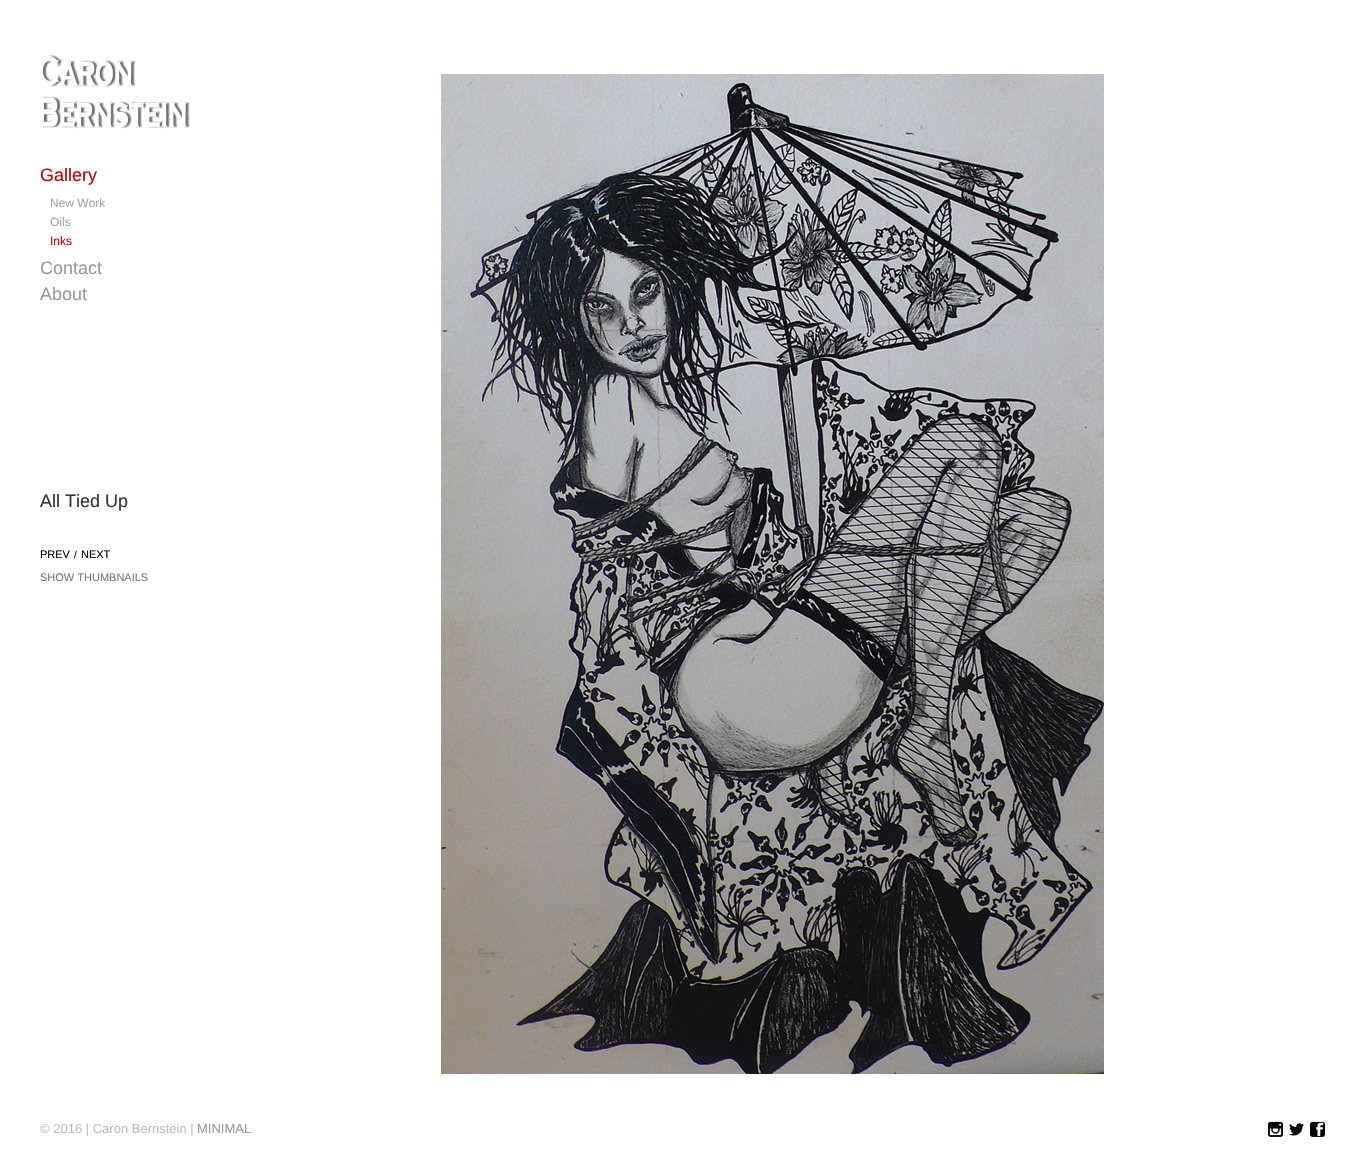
#include "include/core/SkBlurTypes.h"
#include "include/core/SkCanvas.h"
#include "include/core/SkData.h"
#include "include/core/SkFont.h"
#include "include/core/SkFontMgr.h"
#include "include/core/SkImage.h"
#include "include/core/SkMaskFilter.h"
#include "include/core/SkPaint.h"
#include "include/core/SkPathBuilder.h"
#include "include/core/SkTextBlob.h"
#include "include/effects/SkDashPathEffect.h"
#include "include/effects/SkGradientShader.h"
#include "include/utils/SkParsePath.h"

extern sk_sp<SkFontMgr> fontMgr;

void draw(SkCanvas* canvas) {
    SkPaint p;
    p.setAntiAlias(true);
    auto font = [&](const char* family, int weight, float size, bool italic = false) {
        SkFontStyle style(weight, SkFontStyle::kNormal_Width,
            italic ? SkFontStyle::kItalic_Slant : SkFontStyle::kUpright_Slant);
        SkFont result(fontMgr->matchFamilyStyle(family, style), size);
        result.setSubpixel(true);
        return result;
    };
    auto drawPhoto = [&](const char* path, float l, float t, float r, float b) {
        auto image = SkImages::DeferredFromEncodedData(SkData::MakeFromFileName(path));
        canvas->drawImageRect(image, SkRect::MakeLTRB(l, t, r, b), SkSamplingOptions());
    };
    canvas->clear(0xFFFFFFFF);
    drawPhoto("media/1.png", 41, 55, 190, 129);
    auto font1 = font("Liberation Sans", 400, 18);
    p.setColor(0xFFBB0606);
    canvas->drawString("Gallery", 40, 181, font1, p);
    auto font2 = font("Liberation Sans", 400, 12);
    p.setColor(0xFFA6A6A6);
    canvas->drawString("New Work", 50, 207, font2, p);
    canvas->drawString("Oils", 50, 226, font2, p);
    p.setColor(0xFFBB0606);
    canvas->drawString("Inks", 50, 245, font2, p);
    p.setColor(0xFF999999);
    canvas->drawString("Contact", 40, 274, font1, p);
    canvas->drawString("About", 40, 300, font1, p);
    p.setColor(0xFF333333);
    canvas->drawString("All Tied Up", 40, 507, font1, p);
    drawPhoto("media/2.png", 441, 74, 1104, 1074);
    auto font3 = font("Liberation Sans", 400, 11);
    p.setColor(0xFF000000);
    canvas->drawString("PREV", 40, 558, font3, p);
    auto font4 = font("Liberation Sans", 400, 10);
    canvas->drawString("/", 74, 558, font4, p);
    canvas->drawString("NEXT", 81, 558, font3, p);
    p.setColor(0xFF777777);
    canvas->drawString("SHOW THUMBNAILS", 40, 581, font3, p);
    auto font5 = font("Liberation Sans", 400, 13);
    p.setColor(0xFFBDBDBD);
    canvas->drawString("© 2016 | Caron Bernstein |", 40, 1133, font5, p);
    p.setColor(0xFF999999);
    canvas->drawString("MINIMAL", 197, 1133, font5, p);
    drawPhoto("media/3.png", 1268, 1121, 1283, 1137);
    drawPhoto("media/4.png", 1289, 1123, 1304, 1136);
    drawPhoto("media/5.png", 1310, 1121, 1325, 1137);
}
